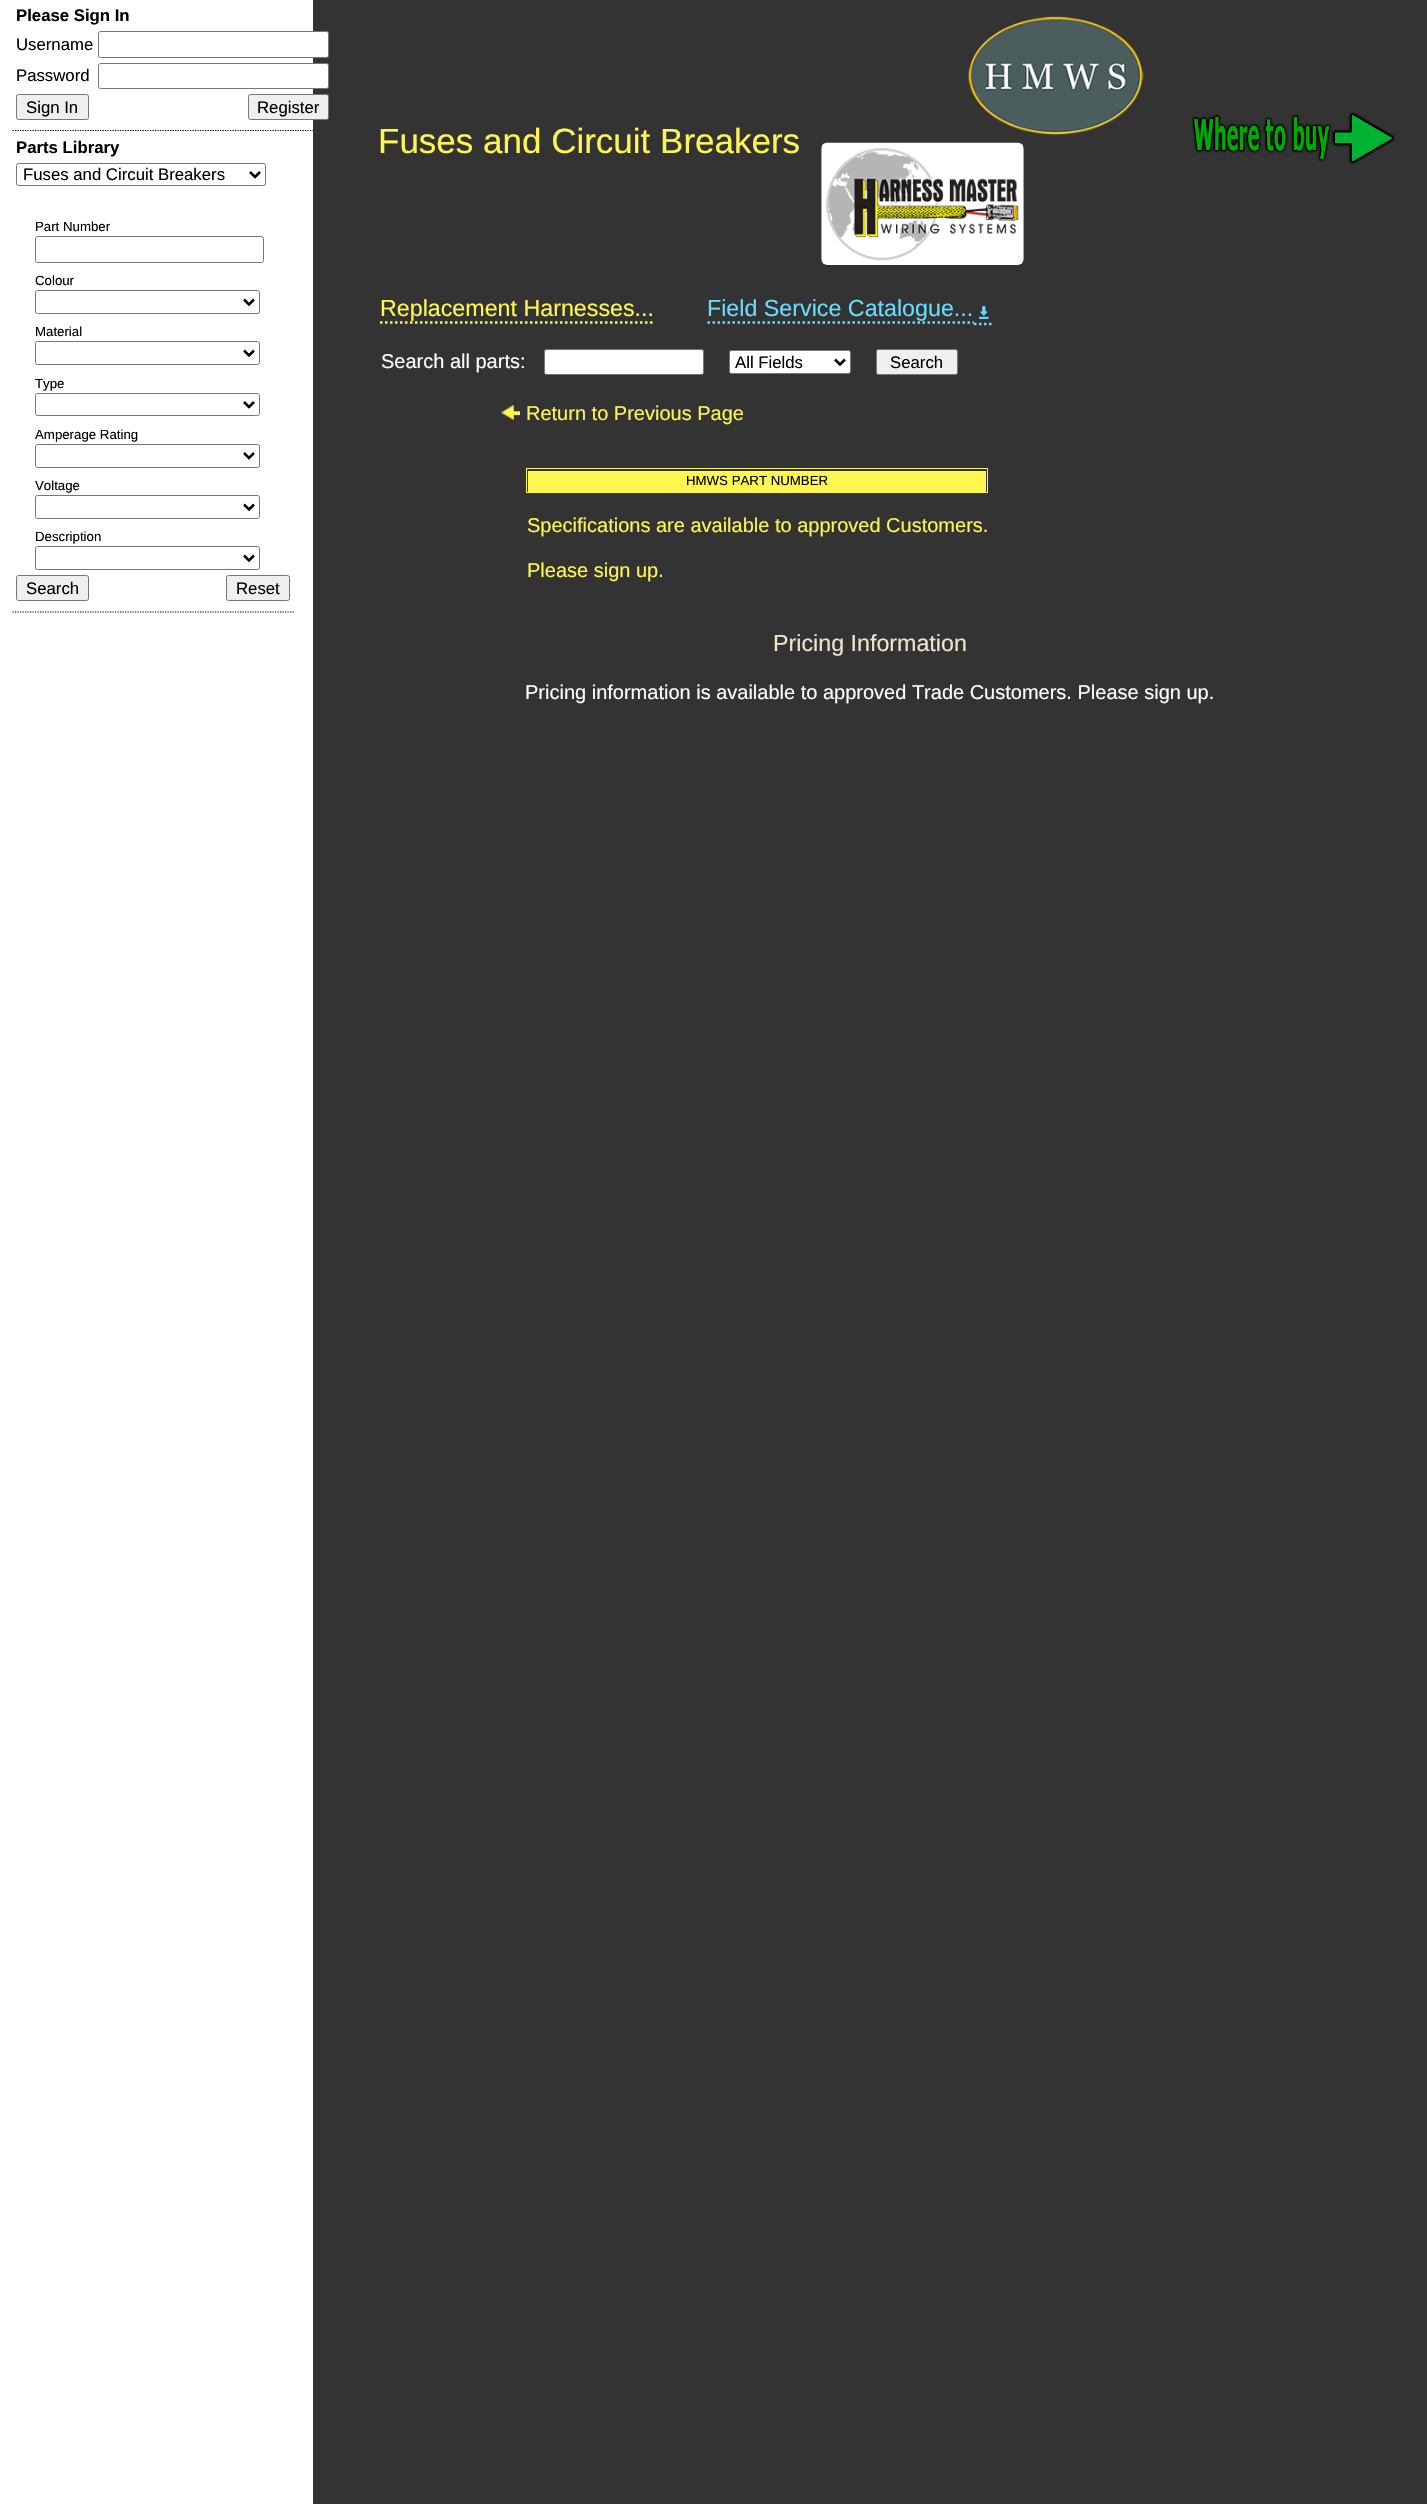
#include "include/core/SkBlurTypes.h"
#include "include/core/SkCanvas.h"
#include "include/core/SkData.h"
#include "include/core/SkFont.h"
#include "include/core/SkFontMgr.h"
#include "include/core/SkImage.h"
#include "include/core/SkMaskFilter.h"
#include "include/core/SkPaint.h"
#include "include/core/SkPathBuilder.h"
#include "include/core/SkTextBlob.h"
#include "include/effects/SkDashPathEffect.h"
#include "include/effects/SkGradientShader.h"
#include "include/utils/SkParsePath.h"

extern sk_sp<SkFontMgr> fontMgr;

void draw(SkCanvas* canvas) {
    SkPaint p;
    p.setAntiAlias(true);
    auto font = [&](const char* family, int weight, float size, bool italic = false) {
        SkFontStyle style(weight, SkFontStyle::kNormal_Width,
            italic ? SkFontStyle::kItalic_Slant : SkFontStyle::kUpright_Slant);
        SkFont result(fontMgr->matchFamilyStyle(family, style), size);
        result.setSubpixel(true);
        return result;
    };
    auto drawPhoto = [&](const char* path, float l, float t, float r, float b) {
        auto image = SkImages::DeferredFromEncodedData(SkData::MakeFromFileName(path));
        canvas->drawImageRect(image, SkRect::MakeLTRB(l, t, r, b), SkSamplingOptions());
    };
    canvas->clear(0xFFFFFFFF);
    p.setStyle(SkPaint::kStroke_Style);
    p.setStrokeWidth(1.2f);
    p.setColor(0xFF000000);
    p.setPathEffect(SkDashPathEffect::Make({{1.25f, 1.25f}}, 0));
    canvas->drawPath(SkPathBuilder().moveTo(12.5f, 130.5f).lineTo(332.5f, 130.5f).detach(), p);
    p.setPathEffect(nullptr);
    auto font1 = font("Liberation Sans", 700, 16.75f);
    p.setStyle(SkPaint::kFill_Style);
    canvas->drawString("Please Sign In", 16, 21, font1, p);
    auto font2 = font("Liberation Sans", 400, 16.75f);
    canvas->drawString("Username", 16, 50, font2, p);
    p.setColor(0xFF333333);
    canvas->drawRect(SkRect::MakeLTRB(313, 0, 1427, 2504), p);
    p.setColor(0xFFFFFFFF);
    canvas->drawRoundRect(SkRect::MakeLTRB(98.5f, 31.5f, 328.5f, 57.5f), 2, 2, p);
    p.setStyle(SkPaint::kStroke_Style);
    p.setStrokeWidth(1);
    p.setColor(0xFF767676);
    canvas->drawRoundRect(SkRect::MakeLTRB(98.5f, 31.5f, 328.5f, 57.5f), 2, 2, p);
    p.setStyle(SkPaint::kFill_Style);
    p.setColor(0xFF000000);
    canvas->drawString("Password", 16, 81, font2, p);
    p.setColor(0xFFFFFFFF);
    canvas->drawRoundRect(SkRect::MakeLTRB(98.5f, 63.5f, 328.5f, 88.5f), 2, 2, p);
    p.setStyle(SkPaint::kStroke_Style);
    p.setColor(0xFF767676);
    canvas->drawRoundRect(SkRect::MakeLTRB(98.5f, 63.5f, 328.5f, 88.5f), 2, 2, p);
    p.setStyle(SkPaint::kFill_Style);
    p.setColor(0xFFEFEFEF);
    canvas->drawRoundRect(SkRect::MakeLTRB(16.5f, 94.5f, 88.5f, 119.5f), 2, 2, p);
    p.setStyle(SkPaint::kStroke_Style);
    p.setColor(0xFF767676);
    canvas->drawRoundRect(SkRect::MakeLTRB(16.5f, 94.5f, 88.5f, 119.5f), 2, 2, p);
    p.setStyle(SkPaint::kFill_Style);
    p.setColor(0xFF000000);
    canvas->drawString("Sign In", 26, 113, font2, p);
    p.setColor(0xFFEFEFEF);
    canvas->drawRoundRect(SkRect::MakeLTRB(248.5f, 94.5f, 328.5f, 119.5f), 2, 2, p);
    p.setStyle(SkPaint::kStroke_Style);
    p.setColor(0xFF767676);
    canvas->drawRoundRect(SkRect::MakeLTRB(248.5f, 94.5f, 328.5f, 119.5f), 2, 2, p);
    p.setStyle(SkPaint::kFill_Style);
    p.setColor(0xFF000000);
    canvas->drawString("Register", 257, 113, font2, p);
    p.setStyle(SkPaint::kStroke_Style);
    p.setStrokeWidth(1.2f);
    p.setPathEffect(SkDashPathEffect::Make({{1.25f, 1.25f}}, 0));
    canvas->drawPath(SkPathBuilder().moveTo(12.5f, 612).lineTo(294, 612).detach(), p);
    p.setPathEffect(nullptr);
    p.setStyle(SkPaint::kFill_Style);
    canvas->drawString("Parts Library", 16, 153, font1, p);
    p.setStyle(SkPaint::kStroke_Style);
    p.setStrokeWidth(1);
    p.setColor(0xFF767676);
    canvas->drawRoundRect(SkRect::MakeLTRB(16.5f, 163.5f, 265.5f, 185.5f), 2, 2, p);
    p.setStrokeWidth(2.5f);
    p.setColor(0xFF000000);
    canvas->drawPath(SkPathBuilder().moveTo(250, 172).lineTo(255, 177).lineTo(260, 172).detach(), p);
    p.setStyle(SkPaint::kFill_Style);
    canvas->drawString("Fuses and Circuit Breakers", 23, 180, font2, p);
    auto font3 = font("Liberation Sans", 400, 13.25f);
    canvas->drawString("Part Number", 35, 231, font3, p);
    p.setStyle(SkPaint::kStroke_Style);
    p.setStrokeWidth(1);
    p.setColor(0xFF767676);
    canvas->drawRoundRect(SkRect::MakeLTRB(35.5f, 236.5f, 263.5f, 262.5f), 2, 2, p);
    p.setStyle(SkPaint::kFill_Style);
    p.setColor(0xFF000000);
    canvas->drawString("Colour", 35, 285, font3, p);
    p.setStyle(SkPaint::kStroke_Style);
    p.setColor(0xFF767676);
    canvas->drawRoundRect(SkRect::MakeLTRB(35.5f, 290.5f, 259.5f, 313.5f), 2, 2, p);
    p.setStrokeWidth(2.5f);
    p.setColor(0xFF000000);
    canvas->drawPath(SkPathBuilder().moveTo(244, 299.5f).lineTo(249, 304.5f).lineTo(254, 299.5f).detach(), p);
    p.setStyle(SkPaint::kFill_Style);
    canvas->drawString("Material", 35, 336, font3, p);
    p.setStyle(SkPaint::kStroke_Style);
    p.setStrokeWidth(1);
    p.setColor(0xFF767676);
    canvas->drawRoundRect(SkRect::MakeLTRB(35.5f, 341.5f, 259.5f, 364.5f), 2, 2, p);
    p.setStrokeWidth(2.5f);
    p.setColor(0xFF000000);
    canvas->drawPath(SkPathBuilder().moveTo(244, 350.5f).lineTo(249, 355.5f).lineTo(254, 350.5f).detach(), p);
    p.setStyle(SkPaint::kFill_Style);
    canvas->drawString("Type", 35, 388, font3, p);
    p.setStyle(SkPaint::kStroke_Style);
    p.setStrokeWidth(1);
    p.setColor(0xFF767676);
    canvas->drawRoundRect(SkRect::MakeLTRB(35.5f, 393.5f, 259.5f, 415.5f), 2, 2, p);
    p.setStrokeWidth(2.5f);
    p.setColor(0xFF000000);
    canvas->drawPath(SkPathBuilder().moveTo(244, 402).lineTo(249, 407).lineTo(254, 402).detach(), p);
    p.setStyle(SkPaint::kFill_Style);
    canvas->drawString("Amperage Rating", 35, 439, font3, p);
    p.setStyle(SkPaint::kStroke_Style);
    p.setStrokeWidth(1);
    p.setColor(0xFF767676);
    canvas->drawRoundRect(SkRect::MakeLTRB(35.5f, 444.5f, 259.5f, 467.5f), 2, 2, p);
    p.setStrokeWidth(2.5f);
    p.setColor(0xFF000000);
    canvas->drawPath(SkPathBuilder().moveTo(244, 453).lineTo(249, 458).lineTo(254, 453).detach(), p);
    p.setStyle(SkPaint::kFill_Style);
    canvas->drawString("Voltage", 35, 490, font3, p);
    p.setStyle(SkPaint::kStroke_Style);
    p.setStrokeWidth(1);
    p.setColor(0xFF767676);
    canvas->drawRoundRect(SkRect::MakeLTRB(35.5f, 495.5f, 259.5f, 518.5f), 2, 2, p);
    p.setStrokeWidth(2.5f);
    p.setColor(0xFF000000);
    canvas->drawPath(SkPathBuilder().moveTo(244, 504.5f).lineTo(249, 509.5f).lineTo(254, 504.5f).detach(), p);
    p.setStyle(SkPaint::kFill_Style);
    canvas->drawString("Description", 35, 541, font3, p);
    p.setStyle(SkPaint::kStroke_Style);
    p.setStrokeWidth(1);
    p.setColor(0xFF767676);
    canvas->drawRoundRect(SkRect::MakeLTRB(35.5f, 546.5f, 259.5f, 569.5f), 2, 2, p);
    p.setStrokeWidth(2.5f);
    p.setColor(0xFF000000);
    canvas->drawPath(SkPathBuilder().moveTo(244, 555.5f).lineTo(249, 560.5f).lineTo(254, 555.5f).detach(), p);
    p.setStyle(SkPaint::kFill_Style);
    p.setColor(0xFFEFEFEF);
    canvas->drawRoundRect(SkRect::MakeLTRB(16.5f, 575.5f, 88.5f, 600.5f), 2, 2, p);
    p.setStyle(SkPaint::kStroke_Style);
    p.setStrokeWidth(1);
    p.setColor(0xFF767676);
    canvas->drawRoundRect(SkRect::MakeLTRB(16.5f, 575.5f, 88.5f, 600.5f), 2, 2, p);
    p.setStyle(SkPaint::kFill_Style);
    p.setColor(0xFF000000);
    canvas->drawString("Search", 26, 594, font2, p);
    p.setColor(0xFFEFEFEF);
    canvas->drawRoundRect(SkRect::MakeLTRB(226.5f, 575.5f, 289.5f, 600.5f), 2, 2, p);
    p.setStyle(SkPaint::kStroke_Style);
    p.setColor(0xFF767676);
    canvas->drawRoundRect(SkRect::MakeLTRB(226.5f, 575.5f, 289.5f, 600.5f), 2, 2, p);
    p.setStyle(SkPaint::kFill_Style);
    p.setColor(0xFF000000);
    canvas->drawString("Reset", 236, 594, font2, p);
    auto font4 = font("Liberation Sans", 400, 35);
    p.setColor(0xFFFFF551);
    canvas->drawString("Fuses and Circuit Breakers", 378, 153, font4, p);
    drawPhoto("media/1.png", 968, 16, 1144, 135);
    drawPhoto("media/2.png", 821, 142, 1024, 265);
    drawPhoto("media/3.png", 1191, 112, 1395, 165);
    auto font5 = font("Liberation Sans", 400, 23.25f);
    canvas->drawString("Replacement Harnesses...", 380, 316, font5, p);
    p.setStyle(SkPaint::kStroke_Style);
    p.setStrokeWidth(2.5f);
    p.setPathEffect(SkDashPathEffect::Make({{2.5f, 2.5f}}, 0));
    canvas->drawPath(SkPathBuilder().moveTo(380, 322.5f).lineTo(655, 322.5f).detach(), p);
    p.setPathEffect(nullptr);
    p.setStyle(SkPaint::kFill_Style);
    p.setColor(0xFF66DDFF);
    canvas->drawString("Field Service Catalogue...", 707, 316, font5, p);
    p.setStyle(SkPaint::kStroke_Style);
    p.setPathEffect(SkDashPathEffect::Make({{2.5f, 2.5f}}, 0));
    canvas->drawPath(SkPathBuilder().moveTo(707.5f, 322.5f).lineTo(974, 322.5f).detach(), p);
    p.setPathEffect(nullptr);
    p.setPathEffect(SkDashPathEffect::Make({{2.5f, 2.5f}}, 0));
    canvas->drawPath(SkPathBuilder().moveTo(974, 324).lineTo(994, 324).detach(), p);
    p.setPathEffect(nullptr);
    drawPhoto("media/4.png", 978, 305, 989, 320);
    auto font6 = font("Liberation Sans", 400, 20);
    p.setStyle(SkPaint::kFill_Style);
    p.setColor(0xFFFFFFFF);
    canvas->drawString("Search all parts:", 381, 368, font6, p);
    canvas->drawRoundRect(SkRect::MakeLTRB(544.5f, 349.5f, 703.5f, 374.5f), 2, 2, p);
    p.setStyle(SkPaint::kStroke_Style);
    p.setStrokeWidth(1);
    p.setColor(0xFF767676);
    canvas->drawRoundRect(SkRect::MakeLTRB(544.5f, 349.5f, 703.5f, 374.5f), 2, 2, p);
    p.setStyle(SkPaint::kFill_Style);
    p.setColor(0xFFFFFFFF);
    canvas->drawRoundRect(SkRect::MakeLTRB(729.5f, 350.5f, 850.5f, 373.5f), 2, 2, p);
    p.setStyle(SkPaint::kStroke_Style);
    p.setColor(0xFF767676);
    canvas->drawRoundRect(SkRect::MakeLTRB(729.5f, 350.5f, 850.5f, 373.5f), 2, 2, p);
    p.setStrokeWidth(2.5f);
    p.setColor(0xFF000000);
    canvas->drawPath(SkPathBuilder().moveTo(835, 359.5f).lineTo(840, 364.5f).lineTo(845, 359.5f).detach(), p);
    p.setStyle(SkPaint::kFill_Style);
    canvas->drawString("All Fields", 735, 368, font2, p);
    p.setColor(0xFFEFEFEF);
    canvas->drawRoundRect(SkRect::MakeLTRB(876.5f, 349.5f, 957.5f, 374.5f), 2, 2, p);
    p.setStyle(SkPaint::kStroke_Style);
    p.setStrokeWidth(1);
    p.setColor(0xFF767676);
    canvas->drawRoundRect(SkRect::MakeLTRB(876.5f, 349.5f, 957.5f, 374.5f), 2, 2, p);
    p.setStyle(SkPaint::kFill_Style);
    p.setColor(0xFF000000);
    canvas->drawString("Search", 890, 368, font2, p);
    drawPhoto("media/5.png", 501, 405, 520, 420);
    p.setColor(0xFFFFF551);
    canvas->drawString("Return to Previous Page", 526, 420, font6, p);
    p.setStyle(SkPaint::kStroke_Style);
    canvas->drawRect(SkRect::MakeLTRB(526.5f, 468.5f, 987.5f, 492.5f), p);
    p.setStyle(SkPaint::kFill_Style);
    canvas->drawRect(SkRect::MakeLTRB(528, 471, 986, 492), p);
    p.setColor(0xFF000000);
    canvas->drawString("HMWS PART NUMBER", 686, 485, font3, p);
    p.setColor(0xFFFFF551);
    canvas->drawString("Specifications are available to approved Customers.", 527, 532, font6, p);
    canvas->drawString("Please sign up.", 527, 577, font6, p);
    p.setColor(0xFFEEE5C9);
    canvas->drawString("Pricing Information", 773, 651, font5, p);
    p.setColor(0xFFFFFFFF);
    canvas->drawString("Pricing information is available to approved Trade Customers. Please sign up.", 525, 699, font6, p);
}
